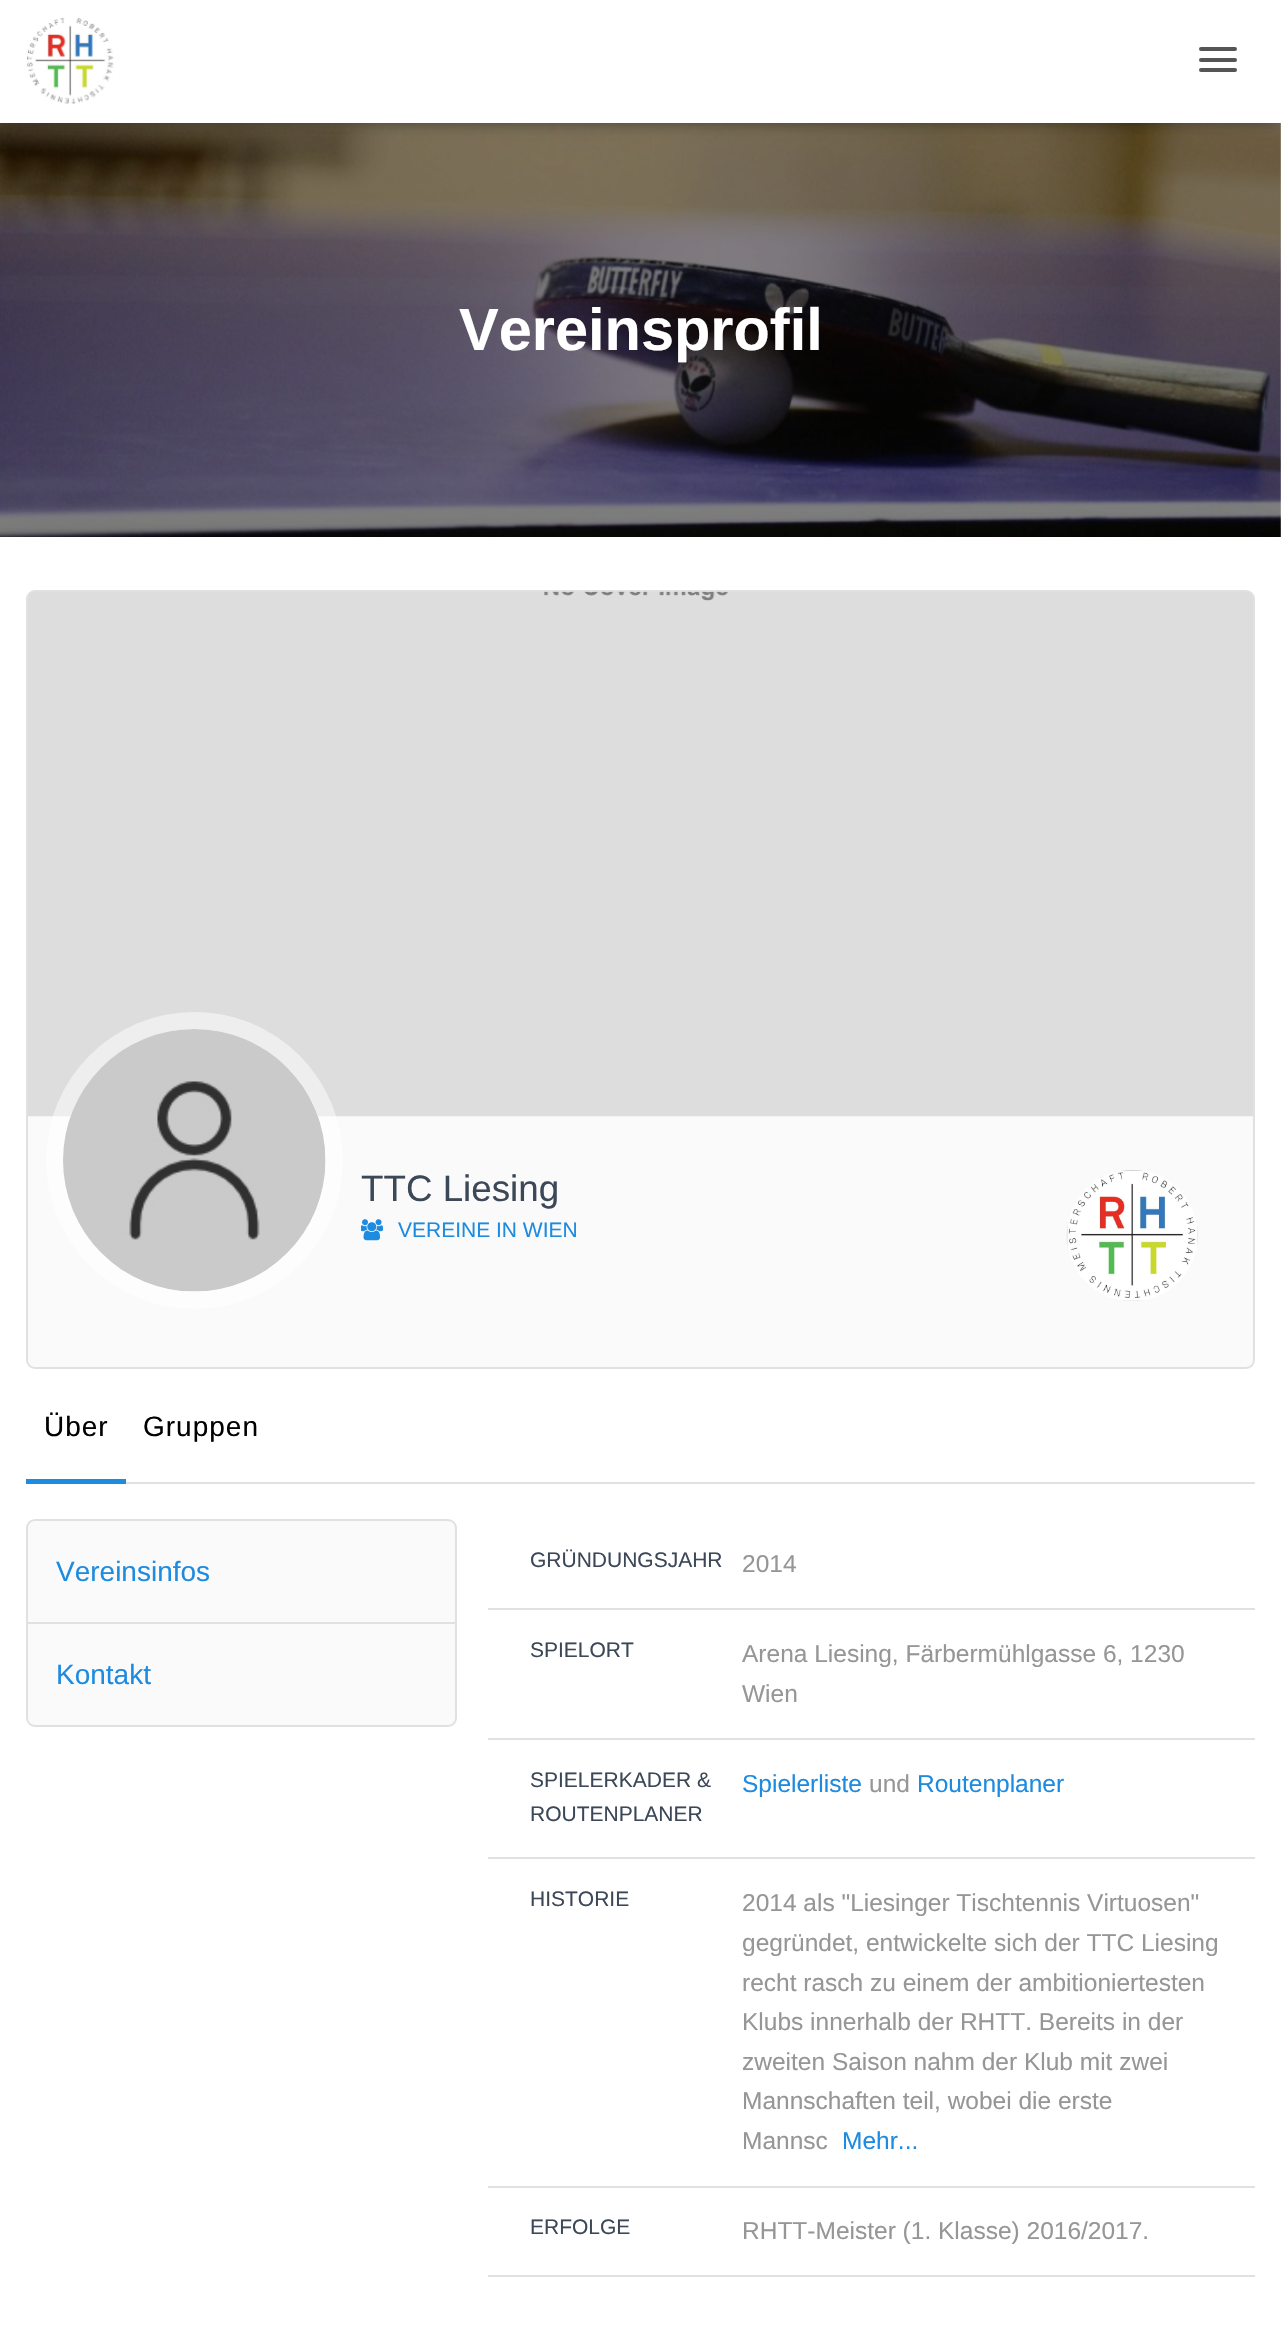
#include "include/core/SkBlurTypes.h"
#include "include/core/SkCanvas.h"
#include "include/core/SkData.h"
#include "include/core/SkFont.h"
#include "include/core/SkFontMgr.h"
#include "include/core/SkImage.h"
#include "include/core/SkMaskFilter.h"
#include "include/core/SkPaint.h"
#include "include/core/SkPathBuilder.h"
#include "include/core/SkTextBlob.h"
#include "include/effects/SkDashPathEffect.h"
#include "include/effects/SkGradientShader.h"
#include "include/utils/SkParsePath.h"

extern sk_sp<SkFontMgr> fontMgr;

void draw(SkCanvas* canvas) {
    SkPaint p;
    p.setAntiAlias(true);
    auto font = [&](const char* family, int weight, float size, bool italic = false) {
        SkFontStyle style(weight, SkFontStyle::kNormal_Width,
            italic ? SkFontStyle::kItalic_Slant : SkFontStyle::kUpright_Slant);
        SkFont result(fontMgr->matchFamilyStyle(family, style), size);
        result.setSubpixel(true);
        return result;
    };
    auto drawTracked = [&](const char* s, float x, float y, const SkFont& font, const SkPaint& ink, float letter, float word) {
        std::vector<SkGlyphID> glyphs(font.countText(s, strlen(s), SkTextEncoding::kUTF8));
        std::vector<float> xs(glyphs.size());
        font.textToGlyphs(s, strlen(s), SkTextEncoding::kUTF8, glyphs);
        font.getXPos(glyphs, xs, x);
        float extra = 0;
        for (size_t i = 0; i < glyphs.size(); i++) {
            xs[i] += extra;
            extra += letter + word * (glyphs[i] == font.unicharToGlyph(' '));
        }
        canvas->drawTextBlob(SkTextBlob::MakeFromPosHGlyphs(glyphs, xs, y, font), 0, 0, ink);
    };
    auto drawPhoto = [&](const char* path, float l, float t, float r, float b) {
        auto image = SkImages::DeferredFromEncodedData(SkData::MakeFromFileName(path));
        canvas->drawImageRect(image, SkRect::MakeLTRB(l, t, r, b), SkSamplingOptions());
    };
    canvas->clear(0xFFFFFFFF);
    drawPhoto("media/2.png", 0, 123, 1281, 537);
    p.setColor(0x1A000000);
    p.setMaskFilter(SkMaskFilter::MakeBlur(kNormal_SkBlurStyle, 4.5f));
    canvas->drawRect(SkRect::MakeLTRB(4, 11, 1278, 126), p);
    p.setMaskFilter(nullptr);
    p.setColor(0x1F000000);
    p.setMaskFilter(SkMaskFilter::MakeBlur(kNormal_SkBlurStyle, 9));
    canvas->drawRect(SkRect::MakeLTRB(0, 2, 1281, 124), p);
    p.setMaskFilter(nullptr);
    p.setColor(0x6B000000);
    p.setMaskFilter(SkMaskFilter::MakeBlur(kNormal_SkBlurStyle, 9));
    canvas->drawRect(SkRect::MakeLTRB(11, 12, 1271, 114), p);
    p.setMaskFilter(nullptr);
    p.setColor(0xFFFFFFFF);
    canvas->drawRect(SkRect::MakeLTRB(0, 0, 1281, 123), p);
    drawPhoto("media/1.png", 27, 17, 114, 104);
    p.setColor(0xFF555555);
    canvas->drawRoundRect(SkRect::MakeLTRB(1199, 47, 1237, 51), 2, 2, p);
    canvas->drawRoundRect(SkRect::MakeLTRB(1199, 58, 1237, 62), 2, 2, p);
    canvas->drawRoundRect(SkRect::MakeLTRB(1199, 68, 1237, 72), 2, 2, p);
    auto font1 = font("Liberation Sans", 700, 59.5f);
    p.setColor(0xFFFFFFFF);
    canvas->drawString("Vereinsprofil", 459, 350, font1, p);
    p.setColor(0x1F000000);
    p.setMaskFilter(SkMaskFilter::MakeBlur(kNormal_SkBlurStyle, 26));
    canvas->drawRect(SkRect::MakeLTRB(-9, 539, 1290, 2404), p);
    p.setMaskFilter(nullptr);
    p.setColor(0xFFFFFFFF);
    canvas->drawRect(SkRect::MakeLTRB(0, 537, 1281, 2326), p);
    p.setColor(0xFFFAFAFA);
    canvas->drawRoundRect(SkRect::MakeLTRB(27, 591, 1254, 1368), 8, 8, p);
    p.setStyle(SkPaint::kStroke_Style);
    p.setStrokeWidth(2);
    p.setColor(0xFFE1E1E1);
    canvas->drawRoundRect(SkRect::MakeLTRB(27, 591, 1254, 1368), 8, 8, p);
    drawPhoto("media/3.png", 28, 591, 1253, 1117);
    p.setStyle(SkPaint::kFill_Style);
    p.setColor(0x80FFFFFF);
    canvas->drawCircle(194.5f, 1160.5f, 148.5f, p);
    p.setColor(0xCCFFFFFF);
    canvas->drawCircle(194.5f, 1160.5f, 131.5f, p);
    drawPhoto("media/4.png", 63, 1029, 326, 1292);
    auto font2 = font("Liberation Sans", 400, 36.75f);
    p.setColor(0xFF3C4858);
    canvas->drawString("TTC Liesing", 361, 1201, font2, p);
    drawPhoto("media/5.png", 361, 1219, 384, 1241);
    auto font3 = font("Liberation Sans", 400, 21);
    p.setColor(0xFF1D8BE0);
    canvas->drawString("VEREINE IN WIEN", 398, 1237, font3, p);
    drawPhoto("media/6.png", 1066, 1170, 1198, 1301);
    p.setColor(0xFFE1E1E1);
    canvas->drawRect(SkRect::MakeLTRB(126, 1482, 1255, 1484), p);
    auto font4 = font("Liberation Sans", 400, 28);
    p.setColor(0xFF000000);
    drawTracked("Über", 44, 1436, font4, p, 1, 0);
    p.setColor(0xFF1D8BE0);
    canvas->drawRect(SkRect::MakeLTRB(26, 1479, 126, 1484), p);
    p.setColor(0xFF000000);
    drawTracked("Gruppen", 143, 1436, font4, p, 1, 0);
    p.setColor(0xFFFAFAFA);
    canvas->drawRoundRect(SkRect::MakeLTRB(27, 1520, 456, 1726), 8, 8, p);
    p.setStyle(SkPaint::kStroke_Style);
    p.setColor(0xFFE1E1E1);
    canvas->drawRoundRect(SkRect::MakeLTRB(27, 1520, 456, 1726), 8, 8, p);
    p.setStyle(SkPaint::kFill_Style);
    canvas->drawRect(SkRect::MakeLTRB(28, 1622, 455, 1624), p);
    p.setColor(0xFF1D8BE0);
    canvas->drawString("Vereinsinfos", 56, 1581, font4, p);
    canvas->drawString("Kontakt", 56, 1684, font4, p);
    p.setColor(0xFFE1E1E1);
    canvas->drawRect(SkRect::MakeLTRB(488, 1608, 1255, 1610), p);
    p.setColor(0xFF3C4858);
    canvas->drawString("GRÜNDUNGSJAHR", 530, 1567, font3, p);
    auto font5 = font("Liberation Sans", 400, 24.5f);
    p.setColor(0xFF969696);
    canvas->drawString("2014", 742, 1572, font5, p);
    p.setColor(0xFFE1E1E1);
    canvas->drawRect(SkRect::MakeLTRB(488, 1738, 1255, 1740), p);
    p.setColor(0xFF3C4858);
    canvas->drawString("SPIELORT", 530, 1657, font3, p);
    p.setColor(0xFF969696);
    canvas->drawString("Arena Liesing, Färbermühlgasse 6, 1230", 742, 1662, font5, p);
    canvas->drawString("Wien", 742, 1702, font5, p);
    p.setColor(0xFFE1E1E1);
    canvas->drawRect(SkRect::MakeLTRB(488, 1857, 1255, 1859), p);
    p.setColor(0xFF3C4858);
    canvas->drawString("SPIELERKADER &", 530, 1787, font3, p);
    canvas->drawString("ROUTENPLANER", 530, 1821, font3, p);
    p.setColor(0xFF1D8BE0);
    canvas->drawString("Spielerliste", 742, 1792, font5, p);
    p.setColor(0xFF969696);
    canvas->drawString("und", 869, 1792, font5, p);
    p.setColor(0xFF1D8BE0);
    canvas->drawString("Routenplaner", 917, 1792, font5, p);
    p.setColor(0xFFE1E1E1);
    canvas->drawRect(SkRect::MakeLTRB(488, 2186, 1255, 2188), p);
    p.setColor(0xFF3C4858);
    canvas->drawString("HISTORIE", 530, 1906, font3, p);
    p.setColor(0xFF969696);
    {
        const struct { const char* s; float x, y; } items[] = {
            {"2014 als \"Liesinger Tischtennis Virtuosen\"", 742, 1911},
            {"gegründet, entwickelte sich der TTC Liesing", 742, 1951},
            {"recht rasch zu einem der ambitioniertesten", 742, 1991},
            {"Klubs innerhalb der RHTT. Bereits in der", 742, 2030},
            {"zweiten Saison nahm der Klub mit zwei", 742, 2070},
            {"Mannschaften teil, wobei die erste", 742, 2109},
            {"Mannsc", 742, 2149},
        };
        for (auto [s, x, y] : items) {
            canvas->drawString(s, x, y, font5, p);
        }
    }
    p.setColor(0xFF1D8BE0);
    canvas->drawString("Mehr...", 842, 2149, font5, p);
    p.setColor(0xFFE1E1E1);
    canvas->drawRect(SkRect::MakeLTRB(488, 2275, 1255, 2277), p);
    p.setColor(0xFF3C4858);
    canvas->drawString("ERFOLGE", 530, 2234, font3, p);
    p.setColor(0xFF969696);
    canvas->drawString("RHTT-Meister (1. Klasse) 2016/2017.", 742, 2239, font5, p);
}
